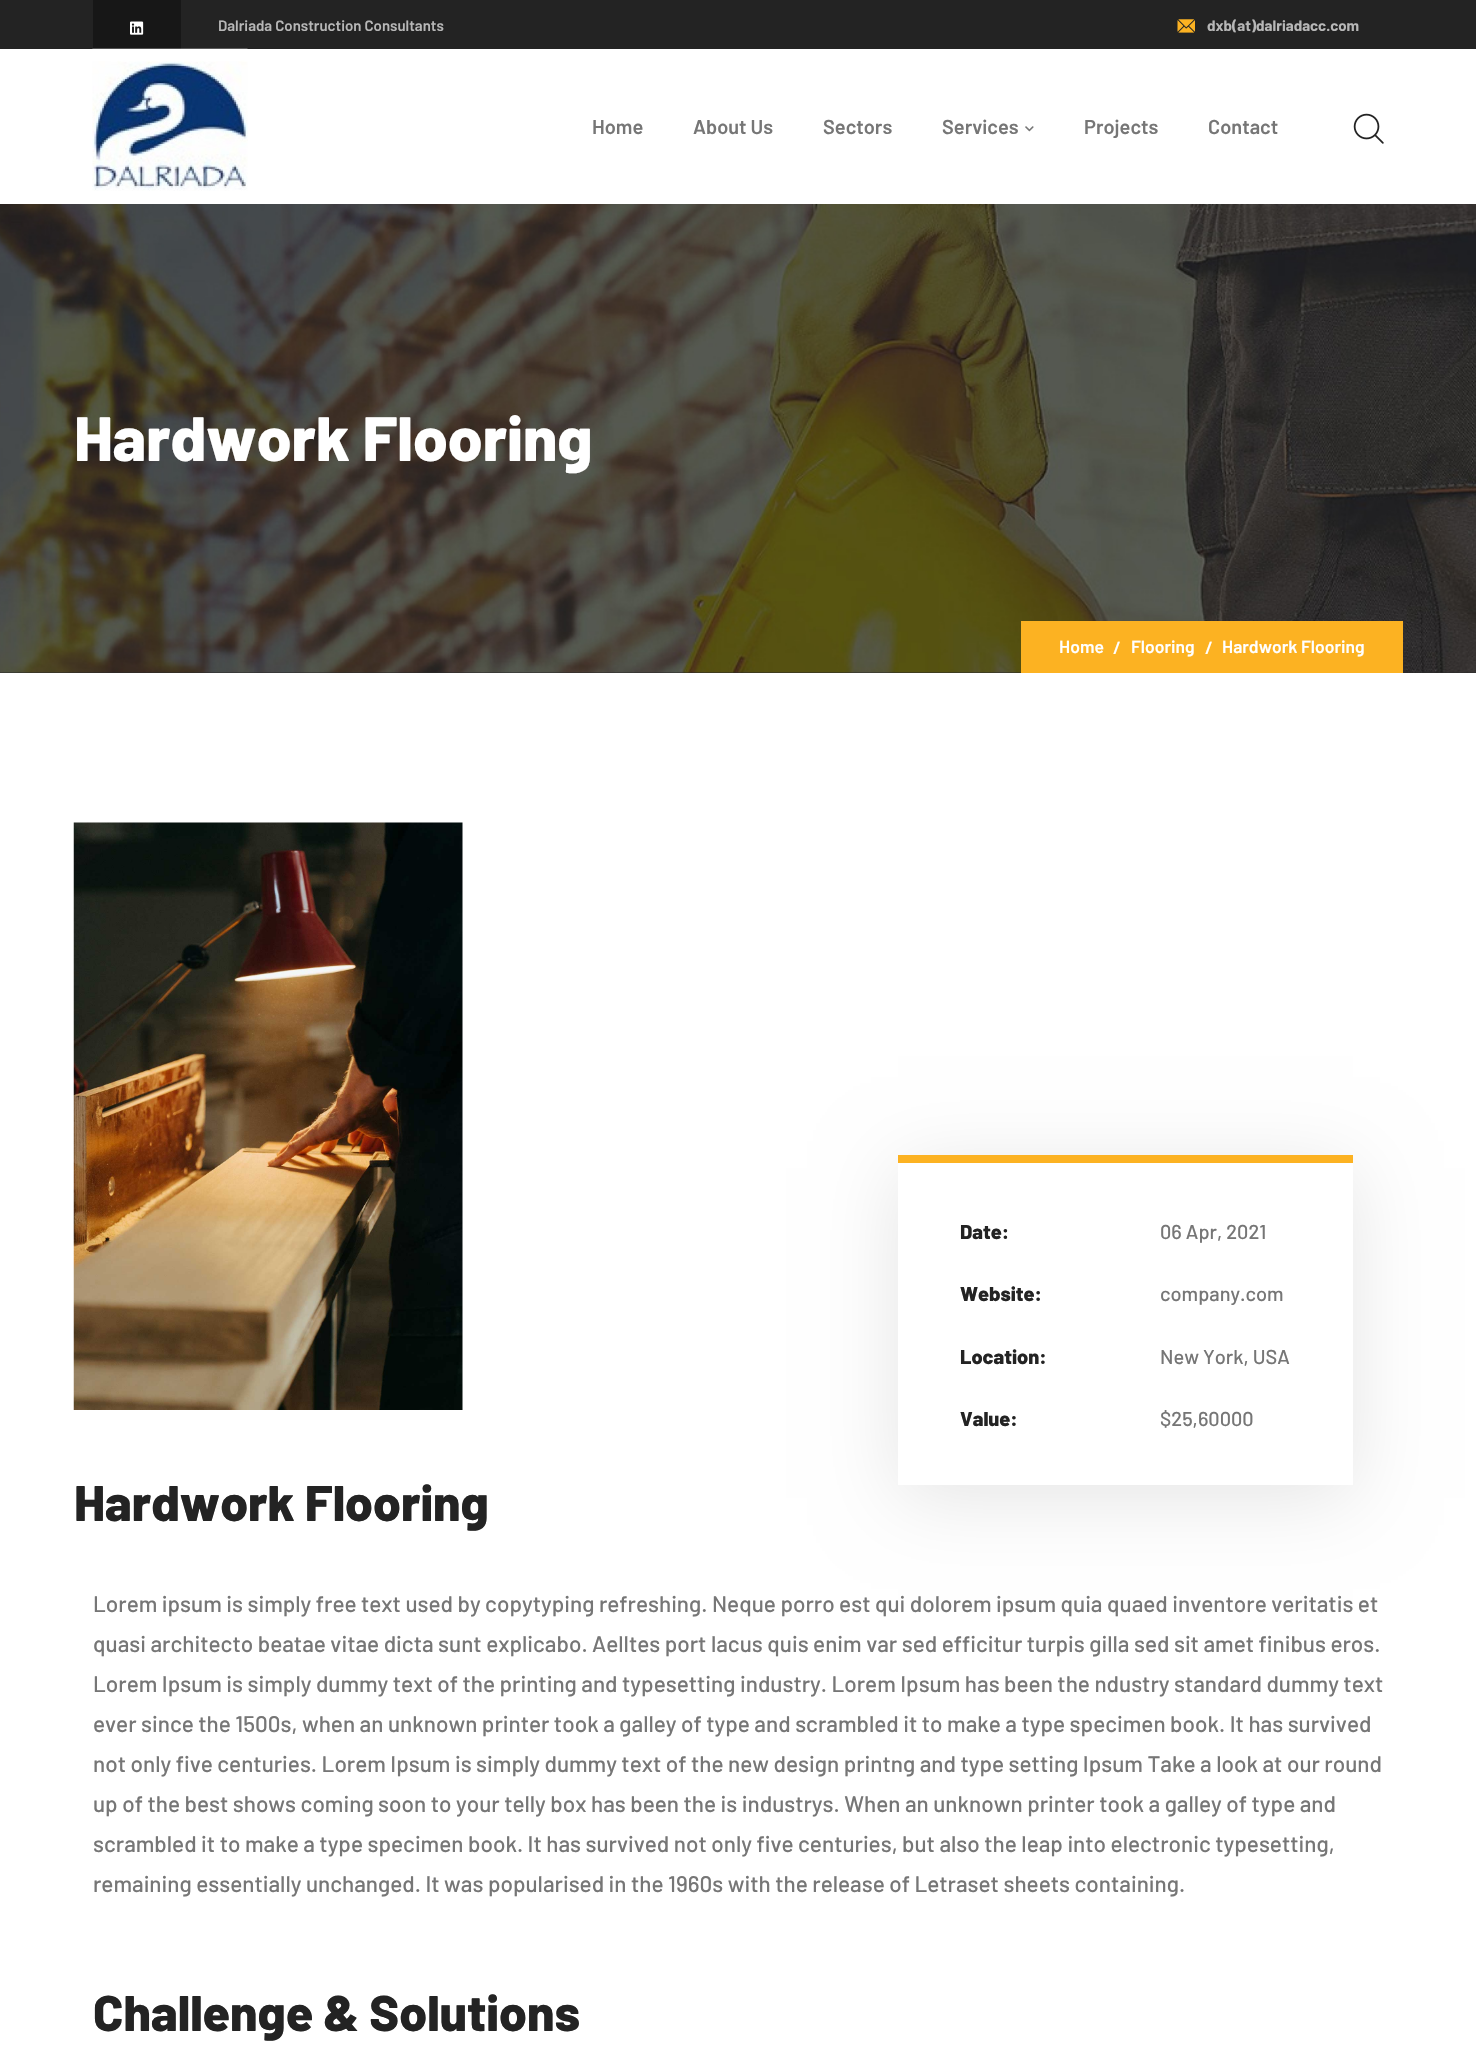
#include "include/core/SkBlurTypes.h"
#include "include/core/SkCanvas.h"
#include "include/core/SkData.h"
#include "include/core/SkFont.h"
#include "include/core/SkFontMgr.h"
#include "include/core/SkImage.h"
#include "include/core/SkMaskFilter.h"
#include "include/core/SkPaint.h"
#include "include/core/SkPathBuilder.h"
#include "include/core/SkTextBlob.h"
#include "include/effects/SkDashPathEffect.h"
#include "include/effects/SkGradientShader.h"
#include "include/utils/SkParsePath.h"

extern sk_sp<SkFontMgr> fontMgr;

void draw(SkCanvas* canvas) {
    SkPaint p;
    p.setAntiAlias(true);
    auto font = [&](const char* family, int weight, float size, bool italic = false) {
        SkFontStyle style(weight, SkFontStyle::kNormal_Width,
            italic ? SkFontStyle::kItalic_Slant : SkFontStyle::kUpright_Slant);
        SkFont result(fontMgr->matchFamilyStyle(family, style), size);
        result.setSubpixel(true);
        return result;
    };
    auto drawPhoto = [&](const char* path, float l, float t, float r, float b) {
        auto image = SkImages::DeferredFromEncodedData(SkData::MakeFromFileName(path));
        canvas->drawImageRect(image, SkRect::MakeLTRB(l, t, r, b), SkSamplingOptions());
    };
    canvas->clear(0xFFFFFFFF);
    p.setColor(0xFF232323);
    canvas->drawRect(SkRect::MakeLTRB(0, 0, 1476, 49), p);
    p.setColor(0xFF171717);
    canvas->drawRect(SkRect::MakeLTRB(93, 0, 181, 49), p);
    drawPhoto("media/1.png", 130, 21, 144, 35);
    auto font1 = font("Barlow", 600, 15);
    p.setColor(0xFFB7B7B7);
    canvas->drawString("Dalriada Construction Consultants", 218, 31, font1, p);
    drawPhoto("media/2.png", 1177, 19, 1195, 33);
    auto font2 = font("Barlow", 700, 15);
    canvas->drawString("dxb(at)dalriadacc.com", 1207, 31, font2, p);
    drawPhoto("media/3.png", 92, 48, 248, 191);
    auto font3 = font("Barlow", 600, 20);
    p.setColor(0xFF767676);
    {
        const struct { const char* s; float x, y; } items[] = {
            {"Home", 592, 134},
            {"About Us", 693, 134},
            {"Sectors", 823, 134},
            {"Services", 942, 134},
        };
        for (auto [s, x, y] : items) {
            canvas->drawString(s, x, y, font3, p);
        }
    }
    drawPhoto("media/4.png", 1025, 126, 1034, 132);
    canvas->drawString("Projects", 1084, 134, font3, p);
    canvas->drawString("Contact", 1208, 134, font3, p);
    drawPhoto("media/5.png", 1353, 113, 1384, 144);
    p.setColor(0xFF292929);
    canvas->drawRect(SkRect::MakeLTRB(0, 672, 1476, 673), p);
    drawPhoto("media/6.png", 0, 204, 1476, 673);
    auto font4 = font("Barlow", 800, 62.5f);
    p.setColor(0xFFFFFFFF);
    canvas->drawString("Hardwork Flooring", 74, 461, font4, p);
    p.setColor(0xFFFCB222);
    canvas->drawRect(SkRect::MakeLTRB(1021, 621, 1403, 673), p);
    auto font5 = font("Barlow", 600, 17.5f);
    p.setColor(0xFFFFFFFF);
    {
        const struct { const char* s; float x, y; } items[] = {
            {"Home", 1059, 653},
            {"/", 1113, 654},
            {"Flooring", 1131, 653},
            {"/", 1205, 654},
            {"Hardwork Flooring", 1222, 653},
        };
        for (auto [s, x, y] : items) {
            canvas->drawString(s, x, y, font5, p);
        }
    }
    drawPhoto("media/7.png", 73, 822, 463, 1410);
    p.setColor(0x1A000000);
    p.setMaskFilter(SkMaskFilter::MakeBlur(kNormal_SkBlurStyle, 37.5f));
    canvas->drawRect(SkRect::MakeLTRB(898, 1168, 1353, 1498), p);
    p.setMaskFilter(nullptr);
    p.setColor(0xFFFFFFFF);
    canvas->drawRect(SkRect::MakeLTRB(898, 1163, 1353, 1485), p);
    p.setColor(0xFFFCB222);
    canvas->drawRect(SkRect::MakeLTRB(898, 1155, 1353, 1163), p);
    auto font6 = font("Barlow", 800, 20);
    p.setColor(0xFF232323);
    canvas->drawString("Date:", 960, 1239, font6, p);
    auto font7 = font("Barlow", 500, 20);
    p.setColor(0xFF767676);
    canvas->drawString("06 Apr, 2021", 1160, 1239, font7, p);
    p.setColor(0xFF232323);
    canvas->drawString("Website:", 960, 1301, font6, p);
    p.setColor(0xFF767676);
    canvas->drawString("company.com", 1160, 1301, font7, p);
    p.setColor(0xFF232323);
    canvas->drawString("Location:", 960, 1364, font6, p);
    p.setColor(0xFF767676);
    canvas->drawString("New York, USA", 1160, 1364, font7, p);
    p.setColor(0xFF232323);
    canvas->drawString("Value:", 960, 1426, font6, p);
    p.setColor(0xFF767676);
    canvas->drawString("$25,60000", 1160, 1426, font7, p);
    auto font8 = font("Barlow", 800, 50);
    p.setColor(0xFF232323);
    canvas->drawString("Hardwork Flooring", 74, 1521, font8, p);
    auto font9 = font("Barlow", 500, 22.5f);
    p.setColor(0xFF767676);
    {
        const struct { const char* s; float x, y; } items[] = {
            {"Lorem ipsum is simply free text used by copytyping refreshing. Neque porro est qui dolorem ipsum quia quaed inventore veritatis et", 93, 1612},
            {"quasi architecto beatae vitae dicta sunt explicabo. Aelltes port lacus quis enim var sed efficitur turpis gilla sed sit amet finibus eros.", 93, 1652},
            {"Lorem Ipsum is simply dummy text of the printing and typesetting industry. Lorem Ipsum has been the ndustry standard dummy text", 93, 1692},
            {"ever since the 1500s, when an unknown printer took a galley of type and scrambled it to make a type specimen book. It has survived", 93, 1732},
            {"not only five centuries. Lorem Ipsum is simply dummy text of the new design printng and type setting Ipsum Take a look at our round", 93, 1772},
            {"up of the best shows coming soon to your telly box has been the is industrys. When an unknown printer took a galley of type and", 93, 1812},
            {"scrambled it to make a type specimen book. It has survived not only five centuries, but also the leap into electronic typesetting,", 93, 1852},
            {"remaining essentially unchanged. It was popularised in the 1960s with the release of Letraset sheets containing.", 93, 1892},
        };
        for (auto [s, x, y] : items) {
            canvas->drawString(s, x, y, font9, p);
        }
    }
    p.setColor(0xFF232323);
    canvas->drawString("Challenge & Solutions", 93, 2031, font8, p);
}
